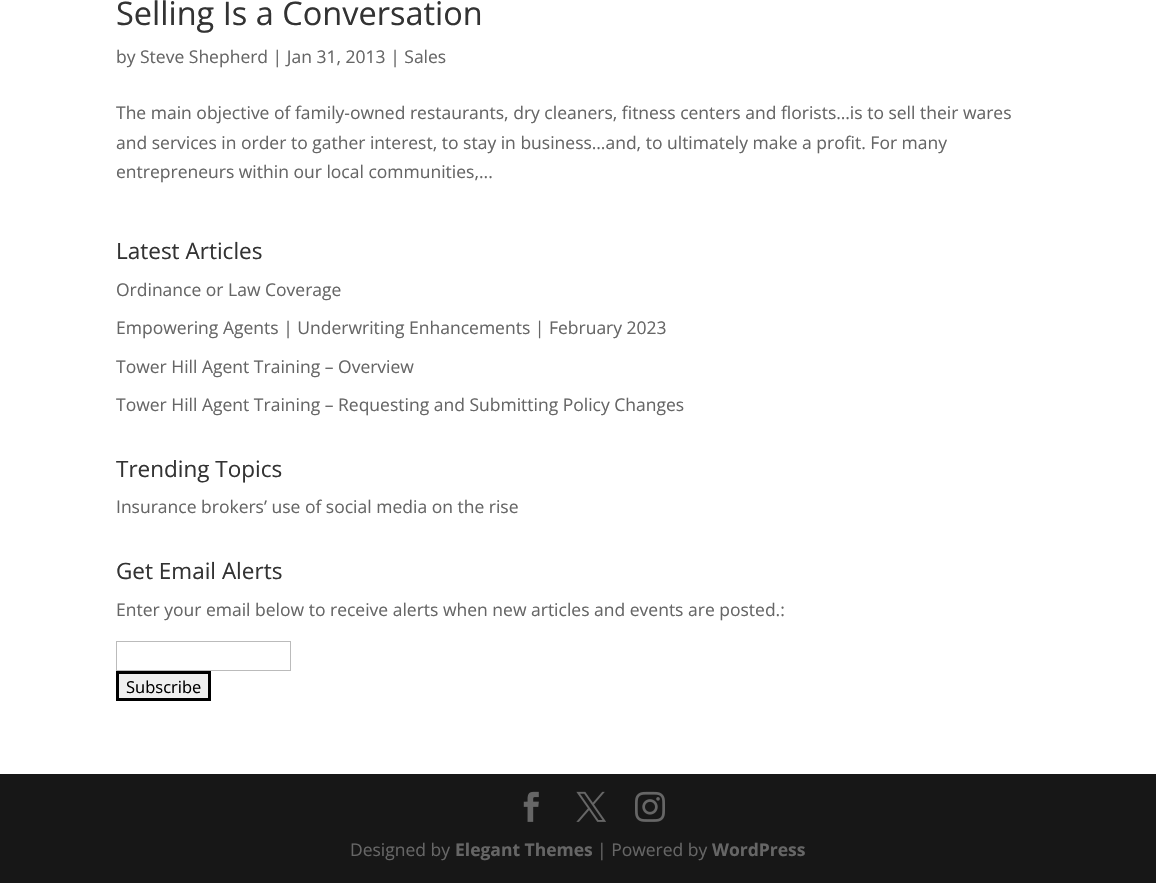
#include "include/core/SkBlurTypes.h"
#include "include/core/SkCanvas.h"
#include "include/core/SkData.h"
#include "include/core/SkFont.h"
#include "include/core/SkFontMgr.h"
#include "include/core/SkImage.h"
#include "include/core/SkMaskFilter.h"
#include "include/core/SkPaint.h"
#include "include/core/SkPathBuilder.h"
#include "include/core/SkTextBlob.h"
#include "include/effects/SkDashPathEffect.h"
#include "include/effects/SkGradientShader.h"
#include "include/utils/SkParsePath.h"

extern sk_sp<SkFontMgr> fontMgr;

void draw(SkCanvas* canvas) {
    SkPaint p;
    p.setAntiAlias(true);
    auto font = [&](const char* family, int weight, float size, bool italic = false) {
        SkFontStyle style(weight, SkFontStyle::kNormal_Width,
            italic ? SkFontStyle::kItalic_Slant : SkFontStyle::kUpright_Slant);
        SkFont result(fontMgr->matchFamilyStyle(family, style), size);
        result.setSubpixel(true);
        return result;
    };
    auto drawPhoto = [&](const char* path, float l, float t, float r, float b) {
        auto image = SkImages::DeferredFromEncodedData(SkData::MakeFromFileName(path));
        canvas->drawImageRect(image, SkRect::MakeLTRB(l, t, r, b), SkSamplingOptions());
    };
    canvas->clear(0xFFFFFFFF);
    auto font1 = font("Open Sans", 400, 32.5f);
    p.setColor(0xFF333333);
    canvas->drawString("Selling Is a Conversation", 116, 25, font1, p);
    auto font2 = font("Open Sans", 400, 17.5f);
    p.setColor(0xFF666666);
    {
        const struct { const char* s; float x, y; } items[] = {
            {"by Steve Shepherd | Jan 31, 2013 | Sales", 116, 63},
            {"The main objective of family-owned restaurants, dry cleaners, fitness centers and florists…is to sell their wares", 116, 119},
            {"and services in order to gather interest, to stay in business…and, to ultimately make a profit. For many", 116, 149},
            {"entrepreneurs within our local communities,...", 116, 178},
        };
        for (auto [s, x, y] : items) {
            canvas->drawString(s, x, y, font2, p);
        }
    }
    auto font3 = font("Open Sans", 400, 22.5f);
    p.setColor(0xFF333333);
    canvas->drawString("Latest Articles", 116, 259, font3, p);
    p.setColor(0xFF666666);
    {
        const struct { const char* s; float x, y; } items[] = {
            {"Ordinance or Law Coverage", 116, 296},
            {"Empowering Agents | Underwriting Enhancements | February 2023", 116, 334},
            {"Tower Hill Agent Training – Overview", 116, 373},
            {"Tower Hill Agent Training – Requesting and Submitting Policy Changes", 116, 411},
        };
        for (auto [s, x, y] : items) {
            canvas->drawString(s, x, y, font2, p);
        }
    }
    p.setColor(0xFF333333);
    canvas->drawString("Trending Topics", 116, 477, font3, p);
    p.setColor(0xFF666666);
    canvas->drawString("Insurance brokers’ use of social media on the rise", 116, 513, font2, p);
    p.setColor(0xFF333333);
    canvas->drawString("Get Email Alerts", 116, 579, font3, p);
    p.setColor(0xFF666666);
    canvas->drawString("Enter your email below to receive alerts when new articles and events are posted.:", 116, 616, font2, p);
    p.setStyle(SkPaint::kStroke_Style);
    p.setStrokeWidth(1);
    p.setColor(0xFFBBBBBB);
    canvas->drawRect(SkRect::MakeLTRB(116.5f, 641.5f, 290.5f, 670.5f), p);
    p.setStyle(SkPaint::kFill_Style);
    p.setColor(0xFFEFEFEF);
    canvas->drawRect(SkRect::MakeLTRB(117.5f, 672.5f, 209.5f, 699.5f), p);
    p.setStyle(SkPaint::kStroke_Style);
    p.setStrokeWidth(3);
    p.setColor(0xFF000000);
    canvas->drawRect(SkRect::MakeLTRB(117.5f, 672.5f, 209.5f, 699.5f), p);
    auto font4 = font("Open Sans", 400, 16.5f);
    p.setStyle(SkPaint::kFill_Style);
    canvas->drawString("Subscribe", 126, 693, font4, p);
    p.setColor(0xFF171717);
    canvas->drawRect(SkRect::MakeLTRB(0, 774, 1156, 883), p);
    drawPhoto("media/1.png", 523, 791, 539, 822);
    drawPhoto("media/2.png", 576, 791, 606, 822);
    drawPhoto("media/3.png", 635, 791, 665, 822);
    p.setColor(0xFF666666);
    canvas->drawString("Designed by", 350, 856, font2, p);
    auto font5 = font("Open Sans", 700, 17.5f);
    canvas->drawString("Elegant Themes", 455, 856, font5, p);
    canvas->drawString("| Powered by", 597, 856, font2, p);
    canvas->drawString("WordPress", 712, 856, font5, p);
}
